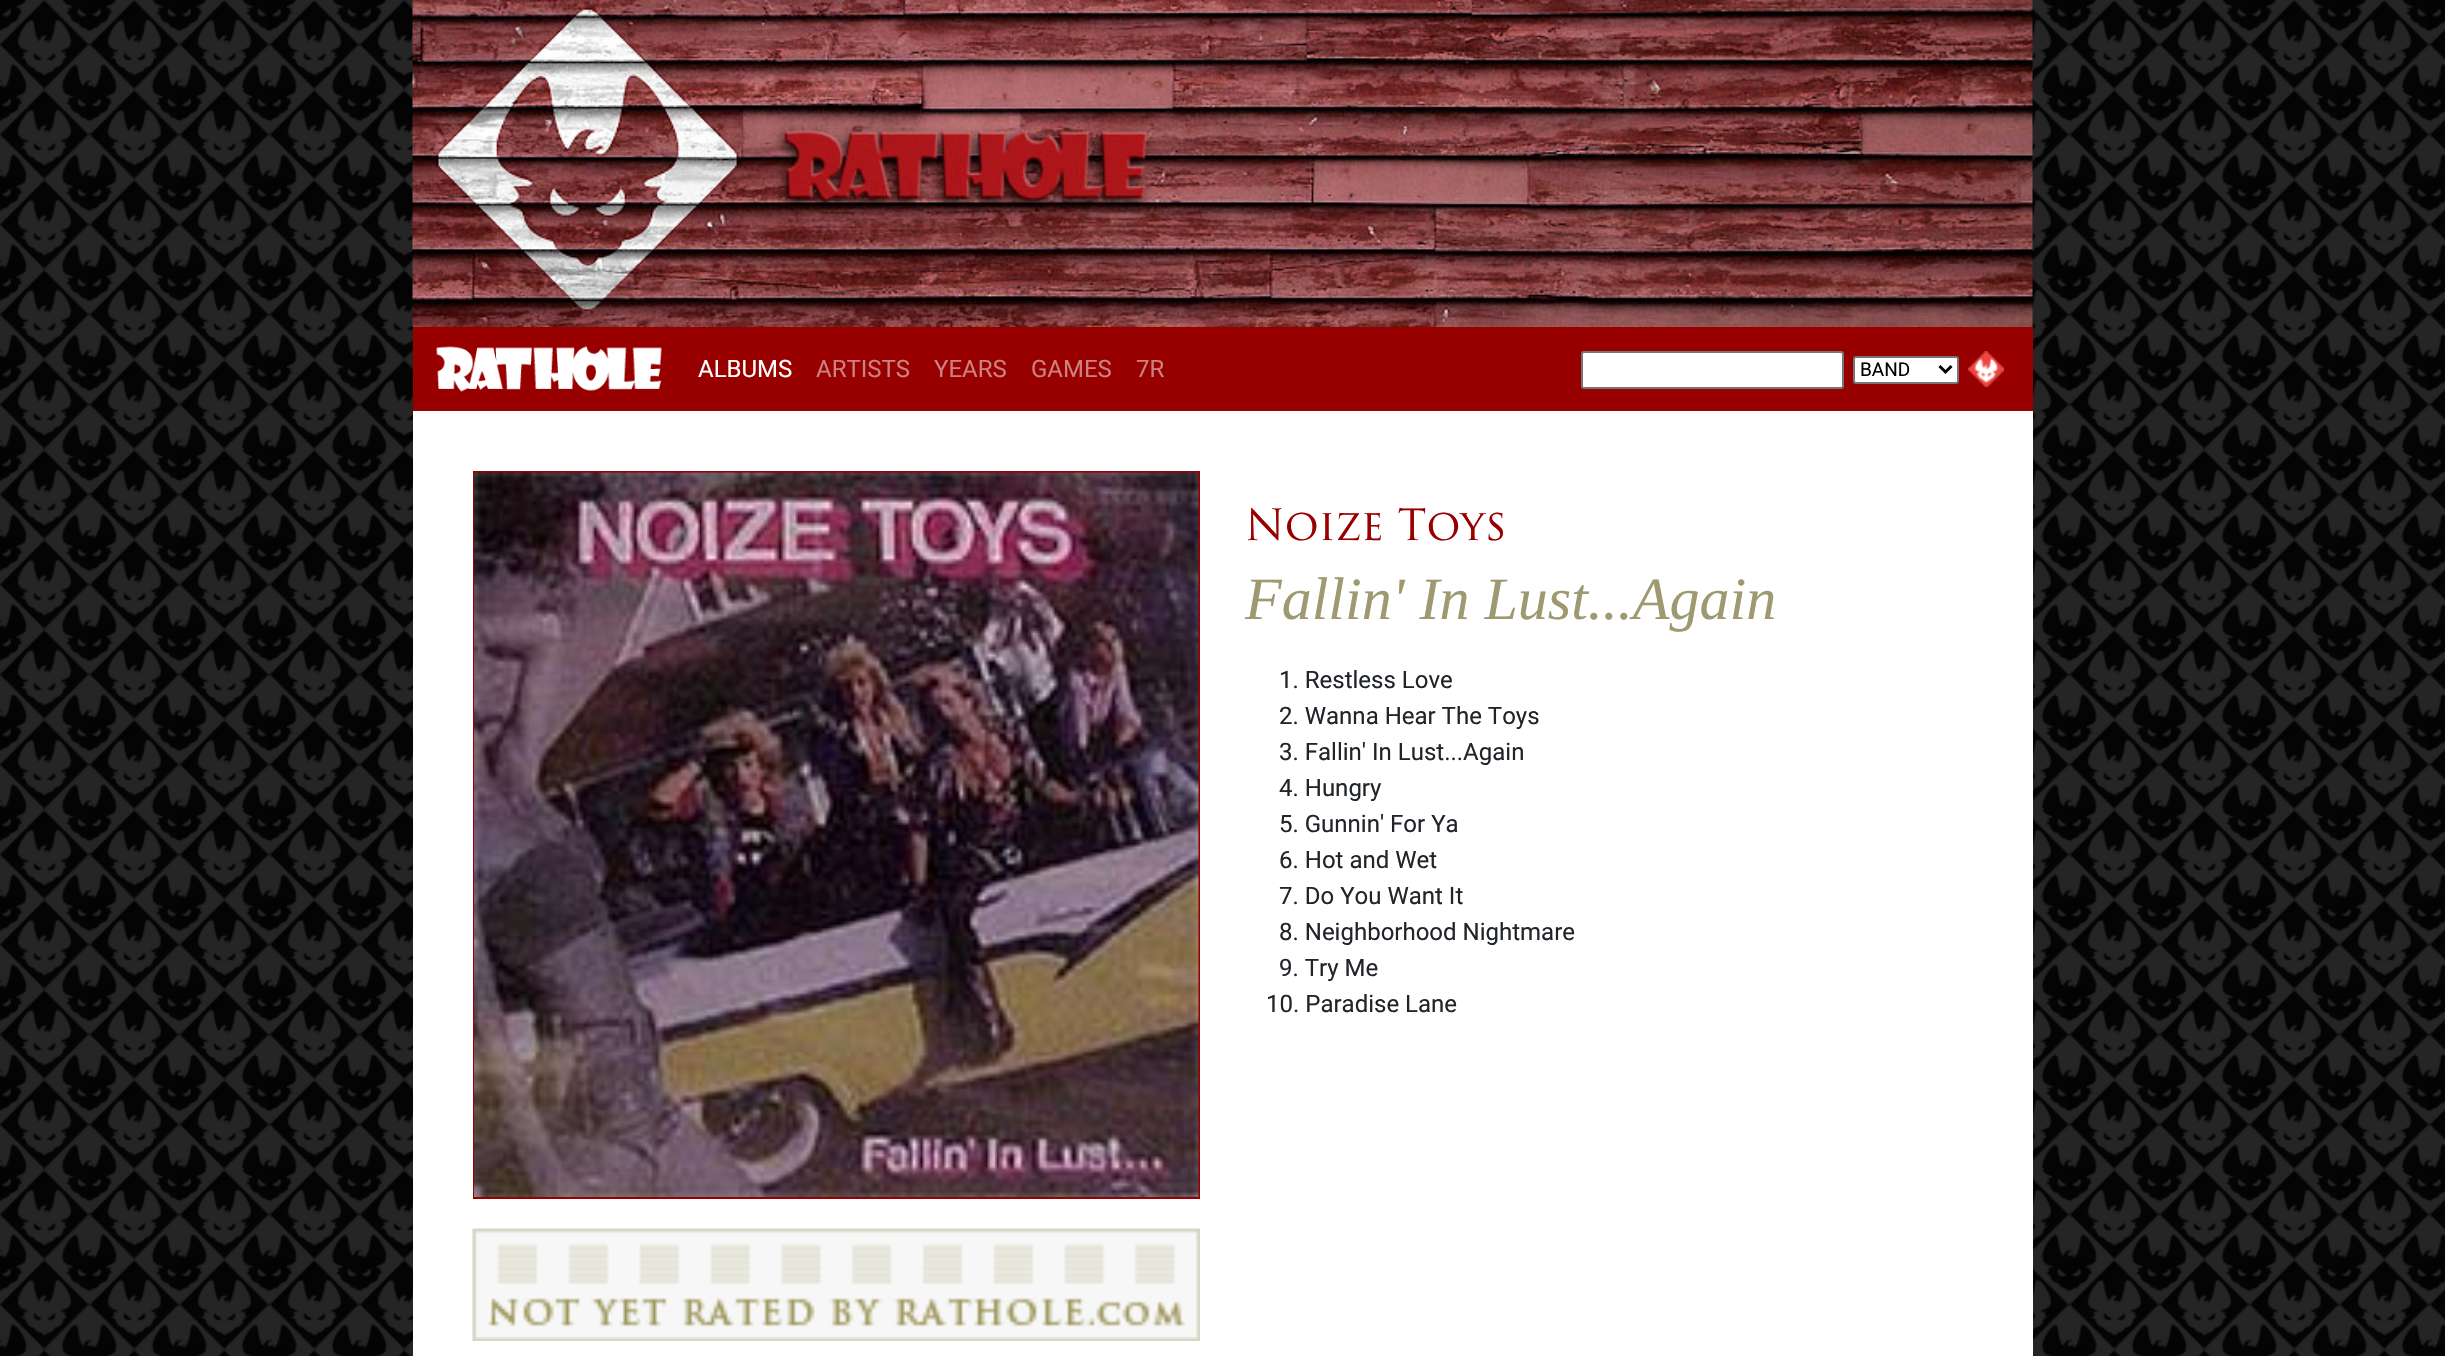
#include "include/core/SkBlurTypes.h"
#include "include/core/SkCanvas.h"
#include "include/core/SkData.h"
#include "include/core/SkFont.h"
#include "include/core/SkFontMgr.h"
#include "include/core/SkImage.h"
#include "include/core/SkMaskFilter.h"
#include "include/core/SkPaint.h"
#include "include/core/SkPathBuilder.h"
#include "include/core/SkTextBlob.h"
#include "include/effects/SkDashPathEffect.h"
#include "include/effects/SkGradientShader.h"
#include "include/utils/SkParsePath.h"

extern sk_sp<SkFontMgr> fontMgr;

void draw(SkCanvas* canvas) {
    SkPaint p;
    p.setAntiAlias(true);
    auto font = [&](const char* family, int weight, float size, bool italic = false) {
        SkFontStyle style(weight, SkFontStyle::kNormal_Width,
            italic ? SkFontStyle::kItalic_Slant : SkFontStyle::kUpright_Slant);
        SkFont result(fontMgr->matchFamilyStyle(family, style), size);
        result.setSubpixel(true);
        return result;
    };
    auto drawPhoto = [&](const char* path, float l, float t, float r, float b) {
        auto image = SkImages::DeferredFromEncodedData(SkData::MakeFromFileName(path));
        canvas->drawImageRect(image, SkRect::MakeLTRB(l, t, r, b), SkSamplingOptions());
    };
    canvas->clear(0xFFFFFFFF);
    drawPhoto("media/1.png", 0, 0, 2445, 1356);
    drawPhoto("media/2.png", 412, 0, 2033, 327);
    p.setColor(0xFF980000);
    canvas->drawRect(SkRect::MakeLTRB(413, 327, 2033, 411), p);
    drawPhoto("media/3.png", 436, 346, 662, 392);
    auto font1 = font("Roboto", 400, 24);
    p.setColor(0xFFFFFFFF);
    canvas->drawString("ALBUMS", 698, 377, font1, p);
    p.setColor(0xFFCC8080);
    {
        const struct { const char* s; float x, y; } items[] = {
            {"ARTISTS", 816, 377},
            {"YEARS", 934, 377},
            {"GAMES", 1031, 377},
            {"7R", 1136, 377},
        };
        for (auto [s, x, y] : items) {
            canvas->drawString(s, x, y, font1, p);
        }
    }
    p.setColor(0xFFFFFFFF);
    canvas->drawRoundRect(SkRect::MakeLTRB(1582, 352, 1843, 388), 2, 2, p);
    p.setStyle(SkPaint::kStroke_Style);
    p.setStrokeWidth(2);
    p.setColor(0xFF767676);
    canvas->drawRoundRect(SkRect::MakeLTRB(1582, 352, 1843, 388), 2, 2, p);
    p.setStyle(SkPaint::kFill_Style);
    p.setColor(0xFFFFFFFF);
    canvas->drawRoundRect(SkRect::MakeLTRB(1854, 357, 1958, 383), 2, 2, p);
    p.setStyle(SkPaint::kStroke_Style);
    p.setColor(0xFF767676);
    canvas->drawRoundRect(SkRect::MakeLTRB(1854, 357, 1958, 383), 2, 2, p);
    p.setStrokeWidth(3);
    p.setColor(0xFF000000);
    canvas->drawPath(SkPathBuilder().moveTo(1939.5f, 366).lineTo(1945.5f, 372).lineTo(1951.5f, 366).detach(), p);
    auto font2 = font("Roboto", 400, 19);
    p.setStyle(SkPaint::kFill_Style);
    canvas->drawString("BAND", 1860, 376, font2, p);
    drawPhoto("media/4.png", 1968, 351, 2004, 387);
    p.setColor(0xFFFFFFFF);
    canvas->drawRect(SkRect::MakeLTRB(413, 411, 2033, 1356), p);
    p.setStyle(SkPaint::kStroke_Style);
    p.setStrokeWidth(2);
    p.setColor(0xFF980000);
    canvas->drawRect(SkRect::MakeLTRB(474, 472, 1199, 1198), p);
    drawPhoto("media/5.png", 474, 472, 1199, 1197);
    drawPhoto("media/6.png", 472, 1228, 1200, 1341);
    auto font3 = font("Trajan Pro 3", 400, 42);
    p.setStyle(SkPaint::kFill_Style);
    canvas->drawString("Noize Toys", 1245, 540, font3, p);
    auto font4 = font("Liberation Serif", 400, 60, true);
    p.setColor(0xFF9E9970);
    canvas->drawString("Fallin' In Lust...Again", 1245, 619, font4, p);
    p.setColor(0xFF212529);
    {
        const struct { const char* s; float x, y; } items[] = {
            {"1. Restless Love", 1279, 688},
            {"2. Wanna Hear The Toys", 1279, 724},
            {"3. Fallin' In Lust...Again", 1279, 760},
            {"4. Hungry", 1279, 796},
            {"5. Gunnin' For Ya", 1279, 832},
            {"6. Hot and Wet", 1279, 868},
            {"7. Do You Want It", 1279, 904},
            {"8. Neighborhood Nightmare", 1279, 940},
            {"9. Try Me", 1279, 976},
            {"10. Paradise Lane", 1266, 1012},
        };
        for (auto [s, x, y] : items) {
            canvas->drawString(s, x, y, font1, p);
        }
    }
}
